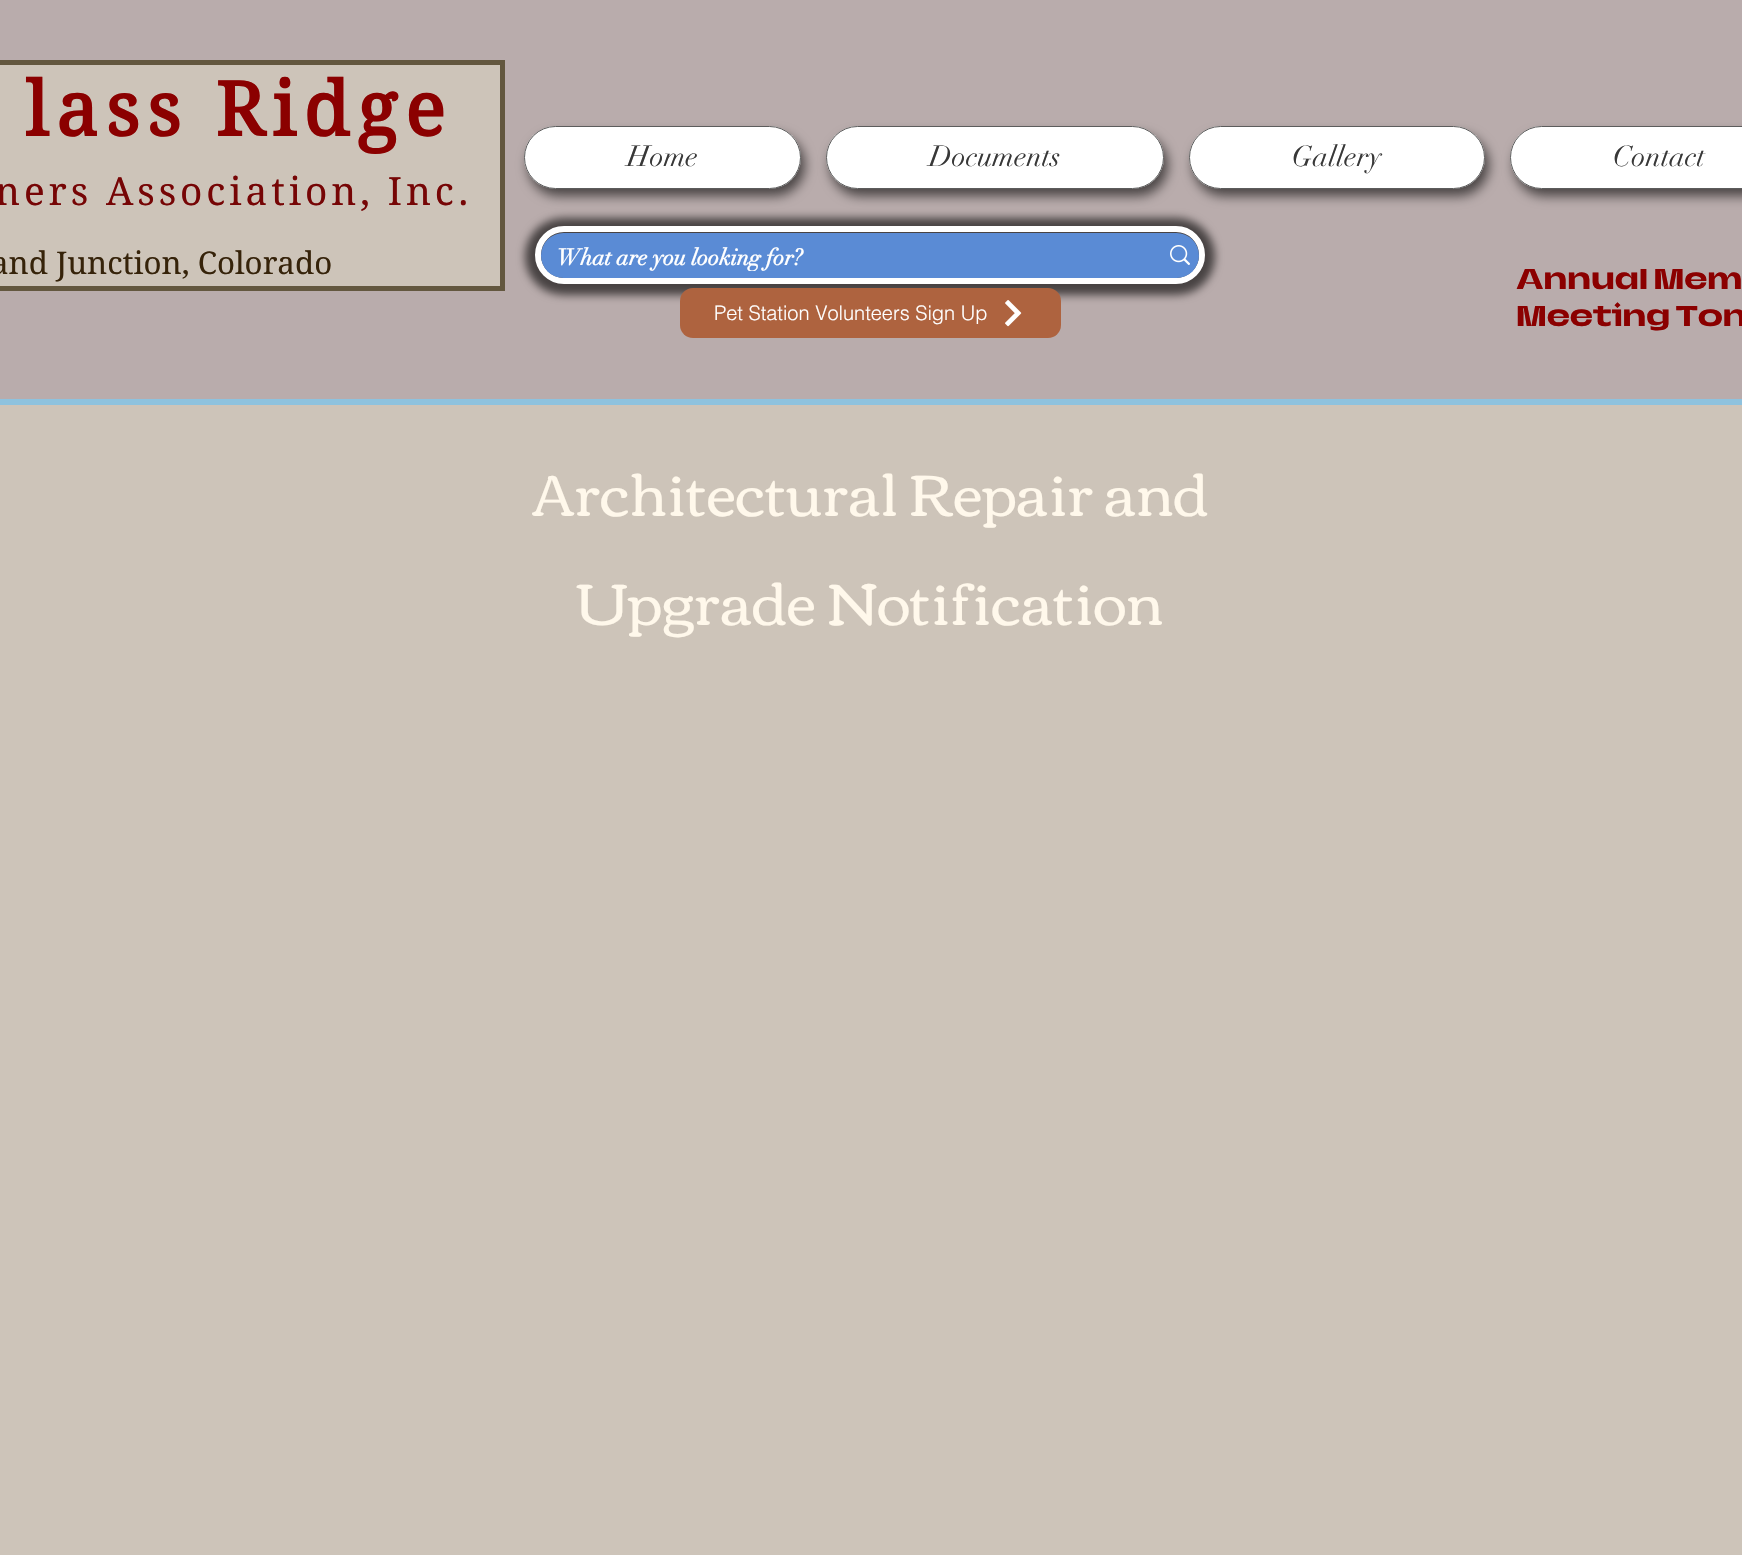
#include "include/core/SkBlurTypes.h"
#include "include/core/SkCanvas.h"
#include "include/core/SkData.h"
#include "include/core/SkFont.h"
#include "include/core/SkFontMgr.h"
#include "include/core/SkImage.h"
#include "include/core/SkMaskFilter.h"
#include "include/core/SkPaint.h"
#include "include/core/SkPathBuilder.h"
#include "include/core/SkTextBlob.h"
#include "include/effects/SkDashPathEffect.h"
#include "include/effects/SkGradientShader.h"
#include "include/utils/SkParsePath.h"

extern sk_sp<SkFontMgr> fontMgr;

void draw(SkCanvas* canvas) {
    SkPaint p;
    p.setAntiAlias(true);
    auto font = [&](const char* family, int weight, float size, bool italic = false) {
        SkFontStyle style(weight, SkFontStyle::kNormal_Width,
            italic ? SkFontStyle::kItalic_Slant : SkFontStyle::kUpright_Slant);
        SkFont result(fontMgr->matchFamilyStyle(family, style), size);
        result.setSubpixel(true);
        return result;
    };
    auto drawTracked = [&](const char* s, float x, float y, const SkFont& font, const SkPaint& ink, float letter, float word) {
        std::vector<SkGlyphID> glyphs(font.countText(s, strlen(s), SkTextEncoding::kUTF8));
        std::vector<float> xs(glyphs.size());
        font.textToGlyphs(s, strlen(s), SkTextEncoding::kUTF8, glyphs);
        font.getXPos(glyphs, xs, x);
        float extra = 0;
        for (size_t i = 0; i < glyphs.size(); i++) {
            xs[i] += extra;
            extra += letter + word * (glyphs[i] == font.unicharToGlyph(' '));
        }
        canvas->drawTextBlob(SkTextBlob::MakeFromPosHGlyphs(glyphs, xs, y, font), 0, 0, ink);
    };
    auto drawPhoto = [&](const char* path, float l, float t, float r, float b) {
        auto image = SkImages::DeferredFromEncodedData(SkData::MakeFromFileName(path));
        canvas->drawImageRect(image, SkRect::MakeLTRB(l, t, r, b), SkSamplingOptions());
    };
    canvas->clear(0xFFCDC4B9);
    p.setColor(0xFF8EC2DE);
    canvas->drawRect(SkRect::MakeLTRB(0, 399, 1742, 405), p);
    p.setColor(0xFFB9ACAC);
    canvas->drawRect(SkRect::MakeLTRB(0, 0, 1742, 399), p);
    p.setColor(0xFFCDC4B9);
    canvas->drawRect(SkRect::MakeLTRB(-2.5f, 62.5f, 502.5f, 288.5f), p);
    p.setStyle(SkPaint::kStroke_Style);
    p.setStrokeWidth(5);
    p.setColor(0xFF63573F);
    canvas->drawRect(SkRect::MakeLTRB(-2.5f, 62.5f, 502.5f, 288.5f), p);
    auto font1 = font("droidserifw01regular", 700, 75);
    p.setStyle(SkPaint::kFill_Style);
    p.setColor(0xFF8B0000);
    drawTracked("lass Ridge", 25, 136, font1, p, 7.5f, 0);
    auto font2 = font("droidserifw01regular", 400, 38.75f);
    p.setColor(0xFF760505);
    drawTracked("ners Association, Inc.", -5, 205, font2, p, 3.9f, 0);
    auto font3 = font("droidserifw01regular", 400, 31.25f);
    p.setColor(0xFF36230A);
    canvas->drawString("and Junction, Colorado", -9, 274, font3, p);
    p.setColor(0x99000000);
    p.setMaskFilter(SkMaskFilter::MakeBlur(kNormal_SkBlurStyle, 6));
    canvas->drawRoundRect(SkRect::MakeLTRB(528, 134, 805, 196), 31, 31, p);
    p.setMaskFilter(nullptr);
    p.setColor(0xFFFFFFFF);
    canvas->drawRoundRect(SkRect::MakeLTRB(524, 126, 801, 189), 31.5f, 31.5f, p);
    p.setStyle(SkPaint::kStroke_Style);
    p.setStrokeWidth(1);
    p.setColor(0xD1383838);
    canvas->drawRoundRect(SkRect::MakeLTRB(524.5f, 126.5f, 800.5f, 188.5f), 31, 31, p);
    auto font4 = font("didot", 400, 28.75f);
    p.setStyle(SkPaint::kFill_Style);
    p.setColor(0xFF383838);
    canvas->drawString("Home", 627, 166, font4, p);
    p.setColor(0x99000000);
    p.setMaskFilter(SkMaskFilter::MakeBlur(kNormal_SkBlurStyle, 6));
    canvas->drawRoundRect(SkRect::MakeLTRB(830, 134, 1168, 196), 31, 31, p);
    p.setMaskFilter(nullptr);
    p.setColor(0xFFFFFFFF);
    canvas->drawRoundRect(SkRect::MakeLTRB(826, 126, 1164, 189), 31.5f, 31.5f, p);
    p.setStyle(SkPaint::kStroke_Style);
    p.setColor(0xD1383838);
    canvas->drawRoundRect(SkRect::MakeLTRB(826.5f, 126.5f, 1163.5f, 188.5f), 31, 31, p);
    p.setStyle(SkPaint::kFill_Style);
    p.setColor(0xFF383838);
    canvas->drawString("Documents", 929, 166, font4, p);
    p.setColor(0x99000000);
    p.setMaskFilter(SkMaskFilter::MakeBlur(kNormal_SkBlurStyle, 6));
    canvas->drawRoundRect(SkRect::MakeLTRB(1193, 134, 1489, 196), 31, 31, p);
    p.setMaskFilter(nullptr);
    p.setColor(0xFFFFFFFF);
    canvas->drawRoundRect(SkRect::MakeLTRB(1189, 126, 1485, 189), 31.5f, 31.5f, p);
    p.setStyle(SkPaint::kStroke_Style);
    p.setColor(0xD1383838);
    canvas->drawRoundRect(SkRect::MakeLTRB(1189.5f, 126.5f, 1484.5f, 188.5f), 31, 31, p);
    p.setStyle(SkPaint::kFill_Style);
    p.setColor(0xFF383838);
    canvas->drawString("Gallery", 1292, 166, font4, p);
    p.setColor(0x99000000);
    p.setMaskFilter(SkMaskFilter::MakeBlur(kNormal_SkBlurStyle, 6));
    canvas->drawRoundRect(SkRect::MakeLTRB(1514, 134, 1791, 196), 31, 31, p);
    p.setMaskFilter(nullptr);
    p.setColor(0xFFFFFFFF);
    canvas->drawRoundRect(SkRect::MakeLTRB(1510, 126, 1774, 189), 31.5f, 31.5f, p);
    p.setStyle(SkPaint::kStroke_Style);
    p.setColor(0xD1383838);
    canvas->drawRoundRect(SkRect::MakeLTRB(1510.5f, 126.5f, 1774.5f, 188.5f), 31, 31, p);
    p.setStyle(SkPaint::kFill_Style);
    p.setColor(0xFF383838);
    canvas->drawString("Contact", 1613, 166, font4, p);
    p.setColor(0x9C000000);
    p.setMaskFilter(SkMaskFilter::MakeBlur(kNormal_SkBlurStyle, 4));
    canvas->drawRoundRect(SkRect::MakeLTRB(525, 218, 1215, 295), 38.5f, 38.5f, p);
    p.setMaskFilter(nullptr);
    p.setStyle(SkPaint::kStroke_Style);
    p.setStrokeWidth(6);
    p.setColor(0xFFFFFFFF);
    canvas->drawRoundRect(SkRect::MakeLTRB(538, 229, 1202, 281), 26, 26, p);
    p.setStyle(SkPaint::kFill_Style);
    p.setColor(0xFF5A8BD5);
    canvas->drawRoundRect(SkRect::MakeLTRB(541, 233, 1199, 278), 22.5f, 22.5f, p);
    canvas->save();
    canvas->clipRect(SkRect::MakeLTRB(541, 244, 1118, 271));
    auto font5 = font("didot", 700, 22.5f);
    p.setColor(0xFFFFFFFF);
    canvas->drawString("What are you looking for?", 557, 265, font5, p);
    canvas->restore();
    drawPhoto("media/1.png", 1170, 245, 1190, 265);
    p.setColor(0xFFAE633F);
    canvas->drawRoundRect(SkRect::MakeLTRB(680, 288, 1061, 338), 13, 13, p);
    auto font6 = font("helvetica", 300, 20);
    p.setColor(0xFFFFFFFF);
    canvas->drawString("Pet Station Volunteers Sign Up", 714, 320, font6, p);
    drawPhoto("media/2.png", 1005, 300, 1022, 327);
    auto font7 = font("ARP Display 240", 900, 25);
    p.setColor(0xFF8B0000);
    canvas->drawString("Annual Mem", 1516, 289, font7, p);
    canvas->drawString("Meeting Ton", 1516, 326, font7, p);
    auto font8 = font("Corben", 400, 58.75f);
    p.setColor(0xFFFFF8EB);
    canvas->drawString("Architectural Repair and", 532, 516, font8, p);
    canvas->drawString("Upgrade Notification", 577, 625, font8, p);
}
